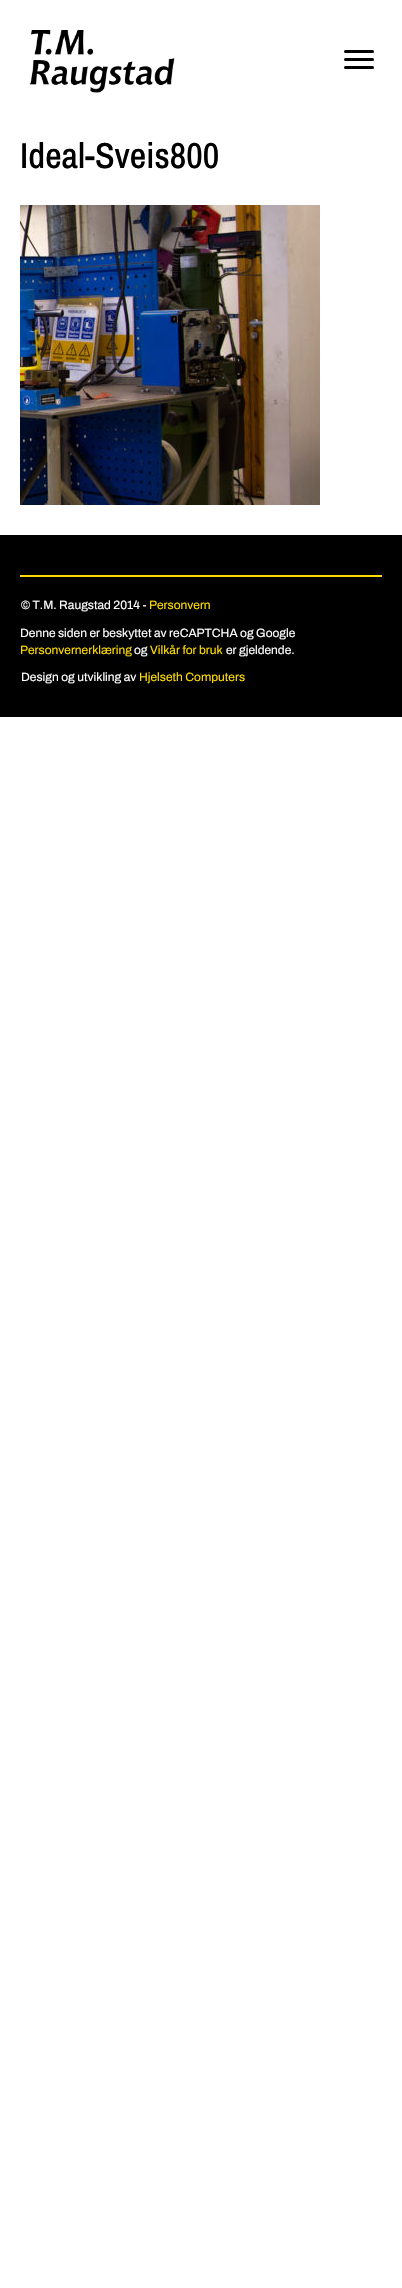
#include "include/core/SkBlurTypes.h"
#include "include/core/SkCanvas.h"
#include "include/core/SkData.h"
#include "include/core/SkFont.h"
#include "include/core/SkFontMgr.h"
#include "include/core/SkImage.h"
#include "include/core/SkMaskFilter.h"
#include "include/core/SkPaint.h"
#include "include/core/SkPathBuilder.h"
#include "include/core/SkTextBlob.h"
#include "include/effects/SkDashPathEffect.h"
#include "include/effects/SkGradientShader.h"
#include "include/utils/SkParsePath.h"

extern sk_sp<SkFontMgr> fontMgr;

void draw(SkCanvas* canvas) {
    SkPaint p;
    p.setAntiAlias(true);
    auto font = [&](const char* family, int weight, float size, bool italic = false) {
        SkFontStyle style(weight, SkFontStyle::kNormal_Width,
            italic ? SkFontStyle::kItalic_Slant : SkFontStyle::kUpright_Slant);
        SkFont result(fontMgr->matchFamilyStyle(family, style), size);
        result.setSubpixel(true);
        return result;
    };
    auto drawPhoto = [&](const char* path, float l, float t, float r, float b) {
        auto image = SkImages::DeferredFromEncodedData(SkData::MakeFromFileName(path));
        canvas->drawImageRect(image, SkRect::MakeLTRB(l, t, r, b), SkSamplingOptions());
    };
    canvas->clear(0xFFFFFFFF);
    drawPhoto("media/1.png", 30, 30, 175, 93);
    p.setColor(0xFF000000);
    canvas->drawRoundRect(SkRect::MakeLTRB(344, 58, 374, 61), 1.5f, 1.5f, p);
    canvas->drawRoundRect(SkRect::MakeLTRB(344, 50, 374, 53), 1.5f, 1.5f, p);
    canvas->drawRoundRect(SkRect::MakeLTRB(344, 66, 374, 69), 1.5f, 1.5f, p);
    auto font1 = font("Archivo Narrow", 500, 36);
    canvas->drawString("Ideal-Sveis800", 20, 168, font1, p);
    drawPhoto("media/2.png", 20, 205, 320, 505);
    canvas->drawRect(SkRect::MakeLTRB(0, 535, 402, 717), p);
    p.setColor(0xFFFFDC00);
    canvas->drawRect(SkRect::MakeLTRB(20, 575, 382, 577), p);
    auto font2 = font("Archivo", 400, 12);
    p.setColor(0xFFFFFFFF);
    canvas->drawString("© T.M. Raugstad 2014 -", 21, 609, font2, p);
    p.setColor(0xFFFFDC00);
    canvas->drawString("Personvern", 149, 609, font2, p);
    p.setColor(0xFFFFFFFF);
    canvas->drawString("Denne siden er beskyttet av reCAPTCHA og Google", 20, 637, font2, p);
    p.setColor(0xFFFFDC00);
    canvas->drawString("Personvernerklæring", 20, 654, font2, p);
    p.setColor(0xFFFFFFFF);
    canvas->drawString("og", 134, 654, font2, p);
    p.setColor(0xFFFFDC00);
    canvas->drawString("Vilkår for bruk", 150, 654, font2, p);
    p.setColor(0xFFFFFFFF);
    canvas->drawString("er gjeldende.", 226, 654, font2, p);
    canvas->drawString("Design og utvikling av", 21, 681, font2, p);
    p.setColor(0xFFFFDC00);
    canvas->drawString("Hjelseth Computers", 139, 681, font2, p);
}
